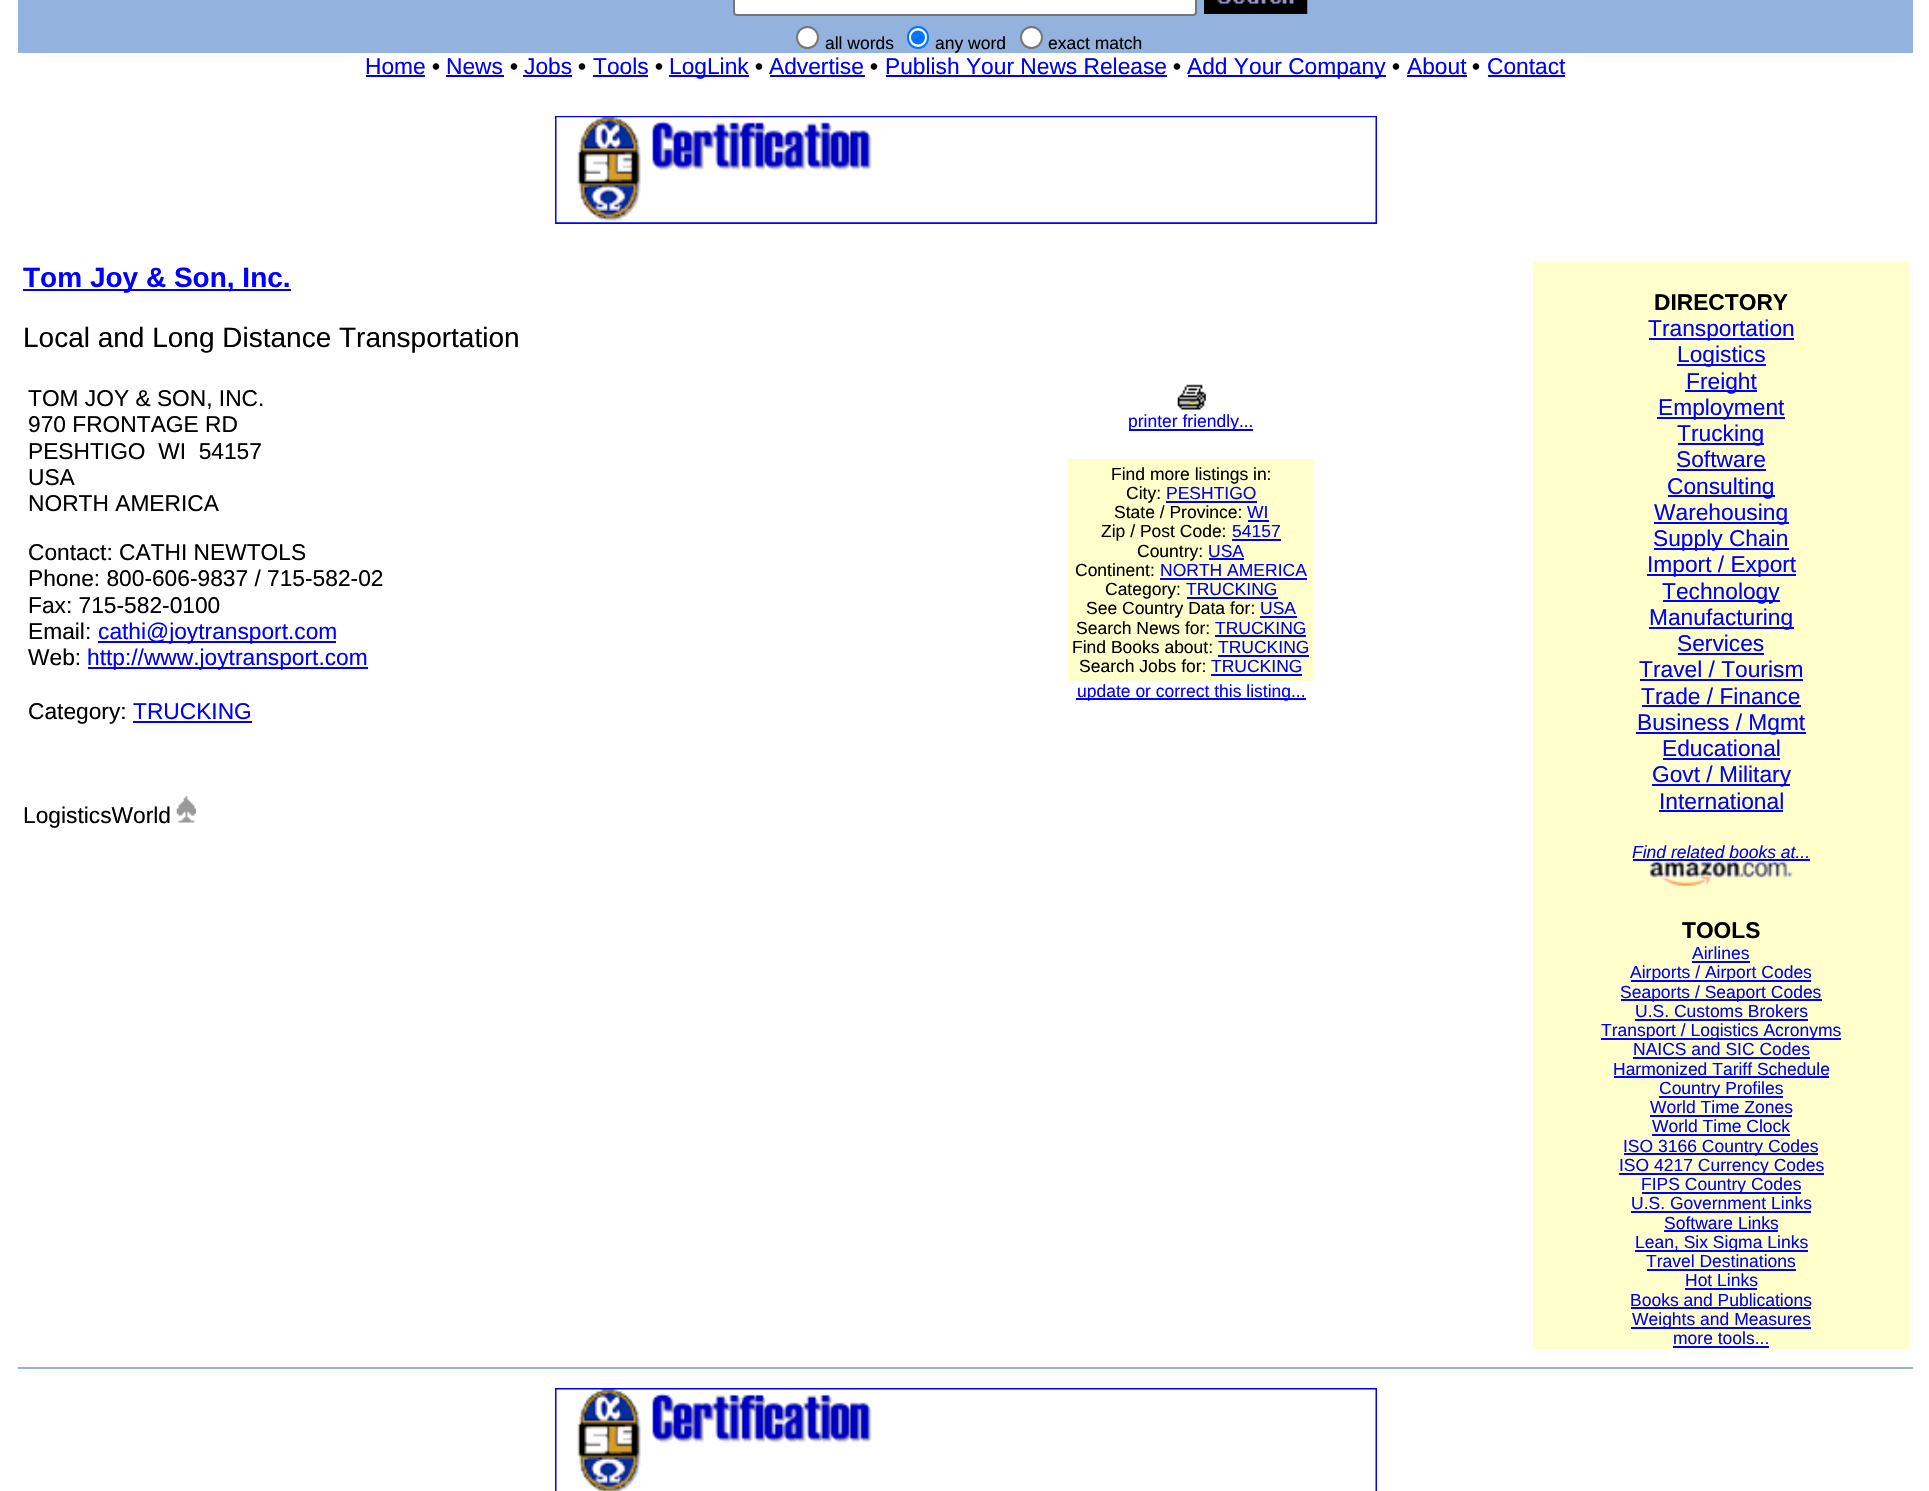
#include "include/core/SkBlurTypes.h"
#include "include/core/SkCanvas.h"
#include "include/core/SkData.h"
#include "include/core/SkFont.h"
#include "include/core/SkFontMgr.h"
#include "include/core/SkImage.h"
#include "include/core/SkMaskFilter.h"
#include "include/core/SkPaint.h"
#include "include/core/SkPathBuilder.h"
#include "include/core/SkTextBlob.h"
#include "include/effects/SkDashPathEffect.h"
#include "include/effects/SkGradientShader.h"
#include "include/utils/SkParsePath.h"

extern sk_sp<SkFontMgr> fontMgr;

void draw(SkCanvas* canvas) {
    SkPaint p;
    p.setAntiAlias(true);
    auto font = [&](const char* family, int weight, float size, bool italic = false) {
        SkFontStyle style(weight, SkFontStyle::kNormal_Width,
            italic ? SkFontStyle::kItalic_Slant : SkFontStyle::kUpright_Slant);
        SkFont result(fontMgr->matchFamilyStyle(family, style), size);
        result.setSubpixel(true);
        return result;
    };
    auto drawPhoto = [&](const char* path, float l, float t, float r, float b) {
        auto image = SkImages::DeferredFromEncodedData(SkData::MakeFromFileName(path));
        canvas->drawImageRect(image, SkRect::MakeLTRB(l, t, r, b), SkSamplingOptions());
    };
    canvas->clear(0xFFFFFFFF);
    p.setColor(0xFF93B2DD);
    canvas->drawRect(SkRect::MakeLTRB(18, 0, 1913, 53), p);
    p.setColor(0xFFFFFFFF);
    canvas->drawRoundRect(SkRect::MakeLTRB(734, -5, 1196, 15), 3, 3, p);
    p.setStyle(SkPaint::kStroke_Style);
    p.setStrokeWidth(2);
    p.setColor(0xFF767676);
    canvas->drawRoundRect(SkRect::MakeLTRB(734, -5, 1196, 15), 3, 3, p);
    drawPhoto("media/1.png", 1204, 0, 1308, 14);
    p.setStyle(SkPaint::kFill_Style);
    p.setColor(0xFFFFFFFF);
    canvas->drawCircle(807.5f, 37.5f, 10.5f, p);
    p.setStyle(SkPaint::kStroke_Style);
    p.setColor(0xFF767676);
    canvas->drawCircle(807.5f, 37.5f, 10.5f, p);
    auto font1 = font("Liberation Sans", 400, 17.5f);
    p.setStyle(SkPaint::kFill_Style);
    p.setColor(0xFF000000);
    canvas->drawString("all words", 825, 49, font1, p);
    p.setColor(0xFFFFFFFF);
    canvas->drawRoundRect(SkRect::MakeLTRB(908, 27, 928, 48), 10, 10, p);
    p.setStyle(SkPaint::kStroke_Style);
    p.setColor(0xFF0075FF);
    canvas->drawRoundRect(SkRect::MakeLTRB(908, 27, 928, 48), 10, 10, p);
    p.setStyle(SkPaint::kFill_Style);
    canvas->drawCircle(918, 37.5f, 7, p);
    p.setColor(0xFF000000);
    canvas->drawString("any word", 935, 49, font1, p);
    p.setColor(0xFFFFFFFF);
    canvas->drawCircle(1031.5f, 37.5f, 10.5f, p);
    p.setStyle(SkPaint::kStroke_Style);
    p.setColor(0xFF767676);
    canvas->drawCircle(1031.5f, 37.5f, 10.5f, p);
    p.setStyle(SkPaint::kFill_Style);
    p.setColor(0xFF000000);
    canvas->drawString("exact match", 1048, 49, font1, p);
    auto font2 = font("Liberation Sans", 400, 22.75f);
    p.setColor(0xFF0000FF);
    canvas->drawString("Home", 365, 74, font2, p);
    canvas->drawRect(SkRect::MakeLTRB(366, 75, 425, 77), p);
    auto font3 = font("Liberation Sans", 700, 22.75f);
    p.setColor(0xFF000000);
    canvas->drawString("•", 432, 74, font3, p);
    p.setColor(0xFF0000FF);
    canvas->drawString("News", 446, 74, font2, p);
    canvas->drawRect(SkRect::MakeLTRB(446, 75, 504, 77), p);
    p.setColor(0xFF000000);
    canvas->drawString("•", 510, 74, font3, p);
    p.setColor(0xFF0000FF);
    canvas->drawString("Jobs", 524, 74, font2, p);
    canvas->drawRect(SkRect::MakeLTRB(523, 75, 572, 77), p);
    p.setColor(0xFF000000);
    canvas->drawString("•", 578, 74, font3, p);
    p.setColor(0xFF0000FF);
    canvas->drawString("Tools", 593, 74, font2, p);
    canvas->drawRect(SkRect::MakeLTRB(593, 75, 648, 77), p);
    p.setColor(0xFF000000);
    canvas->drawString("•", 655, 74, font3, p);
    p.setColor(0xFF0000FF);
    canvas->drawRect(SkRect::MakeLTRB(669, 75, 749, 77), p);
    canvas->drawString("LogLink", 669, 74, font2, p);
    p.setColor(0xFF000000);
    canvas->drawString("•", 755, 74, font3, p);
    p.setColor(0xFF0000FF);
    canvas->drawString("Advertise", 769, 74, font2, p);
    canvas->drawRect(SkRect::MakeLTRB(770, 75, 865, 77), p);
    p.setColor(0xFF000000);
    canvas->drawString("•", 870, 74, font3, p);
    p.setColor(0xFF0000FF);
    canvas->drawString("Publish Your News Release", 885, 74, font2, p);
    canvas->drawRect(SkRect::MakeLTRB(886, 75, 1167, 77), p);
    p.setColor(0xFF000000);
    canvas->drawString("•", 1173, 74, font3, p);
    p.setColor(0xFF0000FF);
    canvas->drawRect(SkRect::MakeLTRB(1188, 75, 1386, 77), p);
    canvas->drawString("Add Your Company", 1187, 74, font2, p);
    p.setColor(0xFF000000);
    canvas->drawString("•", 1392, 74, font3, p);
    p.setColor(0xFF0000FF);
    canvas->drawString("About", 1407, 74, font2, p);
    canvas->drawRect(SkRect::MakeLTRB(1407, 75, 1467, 77), p);
    p.setColor(0xFF000000);
    canvas->drawString("•", 1472, 74, font3, p);
    p.setColor(0xFF0000FF);
    canvas->drawString("Contact", 1487, 74, font2, p);
    canvas->drawRect(SkRect::MakeLTRB(1488, 75, 1565, 77), p);
    p.setStyle(SkPaint::kStroke_Style);
    canvas->drawRect(SkRect::MakeLTRB(556, 117, 1376, 223), p);
    drawPhoto("media/2.png", 556, 117, 1376, 223);
    p.setStyle(SkPaint::kFill_Style);
    canvas->drawRect(SkRect::MakeLTRB(23, 289, 291, 291), p);
    auto font4 = font("Liberation Sans", 700, 28);
    canvas->drawString("Tom Joy & Son, Inc.", 23, 287, font4, p);
    auto font5 = font("Liberation Sans", 400, 28);
    p.setColor(0xFF000000);
    canvas->drawString("Local and Long Distance Transportation", 23, 347, font5, p);
    {
        const struct { const char* s; float x, y; } items[] = {
            {"TOM JOY & SON, INC.", 28, 406},
            {"970 FRONTAGE RD", 28, 432},
            {"PESHTIGO  WI  54157", 28, 459},
            {"USA", 28, 485},
            {"NORTH AMERICA", 28, 511},
            {"Contact: CATHI NEWTOLS", 28, 560},
            {"Phone: 800-606-9837 / 715-582-02", 28, 586},
            {"Fax: 715-582-0100", 28, 613},
            {"Email:", 28, 639},
        };
        for (auto [s, x, y] : items) {
            canvas->drawString(s, x, y, font2, p);
        }
    }
    p.setColor(0xFF0000FF);
    canvas->drawRect(SkRect::MakeLTRB(98, 641, 336, 643), p);
    canvas->drawString("cathi@joytransport.com", 98, 639, font2, p);
    p.setColor(0xFF000000);
    canvas->drawString("Web:", 28, 665, font2, p);
    p.setColor(0xFF0000FF);
    canvas->drawRect(SkRect::MakeLTRB(88, 667, 368, 669), p);
    canvas->drawString("http://www.joytransport.com", 87, 665, font2, p);
    p.setColor(0xFF000000);
    canvas->drawString("Category:", 28, 719, font2, p);
    p.setColor(0xFF0000FF);
    canvas->drawString("TRUCKING", 133, 719, font2, p);
    canvas->drawRect(SkRect::MakeLTRB(133, 721, 252, 723), p);
    drawPhoto("media/3.png", 1177, 384, 1206, 410);
    canvas->drawRect(SkRect::MakeLTRB(1129, 429, 1253, 431), p);
    canvas->drawString("printer friendly...", 1128, 427, font1, p);
    p.setColor(0xFFFFFFCC);
    canvas->drawRect(SkRect::MakeLTRB(1068, 459, 1314, 681), p);
    p.setColor(0xFF000000);
    canvas->drawString("Find more listings in:", 1111, 480, font1, p);
    canvas->drawString("City:", 1126, 499, font1, p);
    p.setColor(0xFF0000FF);
    canvas->drawString("PESHTIGO", 1166, 499, font1, p);
    canvas->drawRect(SkRect::MakeLTRB(1166, 501, 1257, 503), p);
    p.setColor(0xFF000000);
    canvas->drawString("State / Province:", 1114, 518, font1, p);
    p.setColor(0xFF0000FF);
    canvas->drawString("WI", 1247, 518, font1, p);
    canvas->drawRect(SkRect::MakeLTRB(1248, 520, 1269, 522), p);
    p.setColor(0xFF000000);
    canvas->drawString("Zip / Post Code:", 1101, 537, font1, p);
    p.setColor(0xFF0000FF);
    canvas->drawString("54157", 1232, 537, font1, p);
    canvas->drawRect(SkRect::MakeLTRB(1232, 539, 1281, 541), p);
    p.setColor(0xFF000000);
    canvas->drawString("Country:", 1137, 557, font1, p);
    p.setColor(0xFF0000FF);
    canvas->drawString("USA", 1208, 557, font1, p);
    canvas->drawRect(SkRect::MakeLTRB(1209, 558, 1244, 560), p);
    p.setColor(0xFF000000);
    canvas->drawString("Continent:", 1075, 576, font1, p);
    p.setColor(0xFF0000FF);
    canvas->drawString("NORTH AMERICA", 1160, 576, font1, p);
    canvas->drawRect(SkRect::MakeLTRB(1160, 578, 1307, 580), p);
    p.setColor(0xFF000000);
    canvas->drawString("Category:", 1105, 595, font1, p);
    p.setColor(0xFF0000FF);
    canvas->drawString("TRUCKING", 1186, 595, font1, p);
    canvas->drawRect(SkRect::MakeLTRB(1187, 597, 1278, 599), p);
    p.setColor(0xFF000000);
    canvas->drawString("See Country Data for:", 1086, 614, font1, p);
    p.setColor(0xFF0000FF);
    canvas->drawString("USA", 1260, 614, font1, p);
    canvas->drawRect(SkRect::MakeLTRB(1260, 616, 1297, 618), p);
    p.setColor(0xFF000000);
    canvas->drawString("Search News for:", 1076, 634, font1, p);
    p.setColor(0xFF0000FF);
    canvas->drawString("TRUCKING", 1215, 634, font1, p);
    canvas->drawRect(SkRect::MakeLTRB(1215, 635, 1306, 637), p);
    p.setColor(0xFF000000);
    canvas->drawString("Find Books about:", 1072, 653, font1, p);
    p.setColor(0xFF0000FF);
    canvas->drawString("TRUCKING", 1218, 653, font1, p);
    canvas->drawRect(SkRect::MakeLTRB(1218, 655, 1309, 657), p);
    p.setColor(0xFF000000);
    canvas->drawString("Search Jobs for:", 1079, 672, font1, p);
    p.setColor(0xFF0000FF);
    canvas->drawString("TRUCKING", 1211, 672, font1, p);
    canvas->drawRect(SkRect::MakeLTRB(1211, 674, 1302, 676), p);
    canvas->drawRect(SkRect::MakeLTRB(1076, 698, 1306, 700), p);
    canvas->drawString("update or correct this listing...", 1077, 697, font1, p);
    p.setColor(0xFF000000);
    canvas->drawString("LogisticsWorld", 23, 823, font2, p);
    drawPhoto("media/4.png", 176, 796, 196, 823);
    p.setColor(0xFFFFFFCC);
    canvas->drawRect(SkRect::MakeLTRB(1533, 261, 1909, 1349), p);
    p.setColor(0xFF000000);
    canvas->drawString("DIRECTORY", 1654, 310, font3, p);
    p.setColor(0xFF0000FF);
    canvas->drawRect(SkRect::MakeLTRB(1649, 338, 1794, 340), p);
    canvas->drawString("Transportation", 1648, 336, font2, p);
    canvas->drawRect(SkRect::MakeLTRB(1677, 364, 1766, 366), p);
    canvas->drawString("Logistics", 1677, 362, font2, p);
    canvas->drawRect(SkRect::MakeLTRB(1685, 390, 1757, 392), p);
    canvas->drawString("Freight", 1686, 389, font2, p);
    canvas->drawRect(SkRect::MakeLTRB(1657, 417, 1785, 419), p);
    canvas->drawString("Employment", 1658, 415, font2, p);
    canvas->drawRect(SkRect::MakeLTRB(1678, 443, 1764, 445), p);
    canvas->drawString("Trucking", 1677, 441, font2, p);
    canvas->drawString("Software", 1676, 467, font2, p);
    canvas->drawRect(SkRect::MakeLTRB(1677, 469, 1766, 471), p);
    canvas->drawRect(SkRect::MakeLTRB(1668, 495, 1775, 497), p);
    canvas->drawString("Consulting", 1667, 494, font2, p);
    canvas->drawRect(SkRect::MakeLTRB(1654, 522, 1789, 524), p);
    canvas->drawString("Warehousing", 1654, 520, font2, p);
    canvas->drawRect(SkRect::MakeLTRB(1654, 548, 1789, 550), p);
    canvas->drawString("Supply Chain", 1653, 546, font2, p);
    canvas->drawRect(SkRect::MakeLTRB(1647, 574, 1796, 576), p);
    canvas->drawString("Import / Export", 1647, 572, font2, p);
    canvas->drawRect(SkRect::MakeLTRB(1663, 600, 1780, 602), p);
    canvas->drawString("Technology", 1662, 599, font2, p);
    canvas->drawRect(SkRect::MakeLTRB(1649, 627, 1794, 629), p);
    canvas->drawString("Manufacturing", 1649, 625, font2, p);
    canvas->drawString("Services", 1677, 651, font2, p);
    canvas->drawRect(SkRect::MakeLTRB(1678, 653, 1764, 655), p);
    canvas->drawString("Travel / Tourism", 1639, 677, font2, p);
    canvas->drawRect(SkRect::MakeLTRB(1640, 679, 1803, 681), p);
    canvas->drawString("Trade / Finance", 1641, 704, font2, p);
    canvas->drawRect(SkRect::MakeLTRB(1642, 705, 1801, 707), p);
    canvas->drawRect(SkRect::MakeLTRB(1636, 732, 1806, 734), p);
    canvas->drawString("Business / Mgmt", 1637, 730, font2, p);
    canvas->drawString("Educational", 1662, 756, font2, p);
    canvas->drawRect(SkRect::MakeLTRB(1663, 758, 1780, 760), p);
    canvas->drawRect(SkRect::MakeLTRB(1652, 784, 1790, 786), p);
    canvas->drawString("Govt / Military", 1652, 782, font2, p);
    canvas->drawString("International", 1659, 809, font2, p);
    canvas->drawRect(SkRect::MakeLTRB(1659, 810, 1783, 812), p);
    auto font6 = font("Liberation Sans", 400, 17.5f, true);
    canvas->drawString("Find related books at...", 1632, 858, font6, p);
    canvas->drawRect(SkRect::MakeLTRB(1633, 859, 1810, 861), p);
    drawPhoto("media/5.png", 1648, 861, 1793, 888);
    p.setColor(0xFF000000);
    canvas->drawString("TOOLS", 1682, 938, font3, p);
    p.setColor(0xFF0000FF);
    canvas->drawString("Airlines", 1692, 959, font1, p);
    canvas->drawRect(SkRect::MakeLTRB(1692, 961, 1750, 963), p);
    canvas->drawRect(SkRect::MakeLTRB(1631, 980, 1811, 982), p);
    canvas->drawString("Airports / Airport Codes", 1630, 978, font1, p);
    canvas->drawRect(SkRect::MakeLTRB(1621, 999, 1822, 1001), p);
    canvas->drawString("Seaports / Seaport Codes", 1620, 998, font1, p);
    canvas->drawString("U.S. Customs Brokers", 1635, 1017, font1, p);
    canvas->drawRect(SkRect::MakeLTRB(1635, 1019, 1808, 1021), p);
    canvas->drawRect(SkRect::MakeLTRB(1601, 1038, 1841, 1040), p);
    canvas->drawString("Transport / Logistics Acronyms", 1601, 1036, font1, p);
    canvas->drawString("NAICS and SIC Codes", 1633, 1055, font1, p);
    canvas->drawRect(SkRect::MakeLTRB(1633, 1057, 1810, 1059), p);
    canvas->drawString("Harmonized Tariff Schedule", 1613, 1075, font1, p);
    canvas->drawRect(SkRect::MakeLTRB(1614, 1076, 1829, 1078), p);
    canvas->drawRect(SkRect::MakeLTRB(1659, 1096, 1783, 1098), p);
    canvas->drawString("Country Profiles", 1659, 1094, font1, p);
    canvas->drawString("World Time Zones", 1650, 1113, font1, p);
    canvas->drawRect(SkRect::MakeLTRB(1650, 1115, 1792, 1117), p);
    canvas->drawString("World Time Clock", 1652, 1132, font1, p);
    canvas->drawRect(SkRect::MakeLTRB(1652, 1134, 1790, 1136), p);
    canvas->drawRect(SkRect::MakeLTRB(1624, 1153, 1818, 1155), p);
    canvas->drawString("ISO 3166 Country Codes", 1623, 1152, font1, p);
    canvas->drawRect(SkRect::MakeLTRB(1619, 1173, 1824, 1175), p);
    canvas->drawString("ISO 4217 Currency Codes", 1619, 1171, font1, p);
    canvas->drawRect(SkRect::MakeLTRB(1642, 1192, 1801, 1194), p);
    canvas->drawString("FIPS Country Codes", 1641, 1190, font1, p);
    canvas->drawString("U.S. Government Links", 1631, 1209, font1, p);
    canvas->drawRect(SkRect::MakeLTRB(1631, 1211, 1811, 1213), p);
    canvas->drawString("Software Links", 1664, 1229, font1, p);
    canvas->drawRect(SkRect::MakeLTRB(1664, 1230, 1778, 1232), p);
    canvas->drawRect(SkRect::MakeLTRB(1635, 1250, 1808, 1252), p);
    canvas->drawString("Lean, Six Sigma Links", 1635, 1248, font1, p);
    canvas->drawString("Travel Destinations", 1646, 1267, font1, p);
    canvas->drawRect(SkRect::MakeLTRB(1647, 1269, 1796, 1271), p);
    canvas->drawString("Hot Links", 1685, 1286, font1, p);
    canvas->drawRect(SkRect::MakeLTRB(1685, 1288, 1757, 1290), p);
    canvas->drawString("Books and Publications", 1630, 1306, font1, p);
    canvas->drawRect(SkRect::MakeLTRB(1631, 1307, 1811, 1309), p);
    canvas->drawRect(SkRect::MakeLTRB(1631, 1327, 1811, 1329), p);
    canvas->drawString("Weights and Measures", 1632, 1325, font1, p);
    canvas->drawString("more tools...", 1673, 1344, font1, p);
    canvas->drawRect(SkRect::MakeLTRB(1673, 1346, 1769, 1348), p);
    p.setColor(0xFF93B2DD);
    canvas->drawRect(SkRect::MakeLTRB(18, 1367, 1913, 1369), p);
    p.setStyle(SkPaint::kStroke_Style);
    p.setColor(0xFF0000FF);
    canvas->drawRect(SkRect::MakeLTRB(556, 1389, 1376, 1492), p);
    drawPhoto("media/6.png", 556, 1389, 1376, 1491);
}
